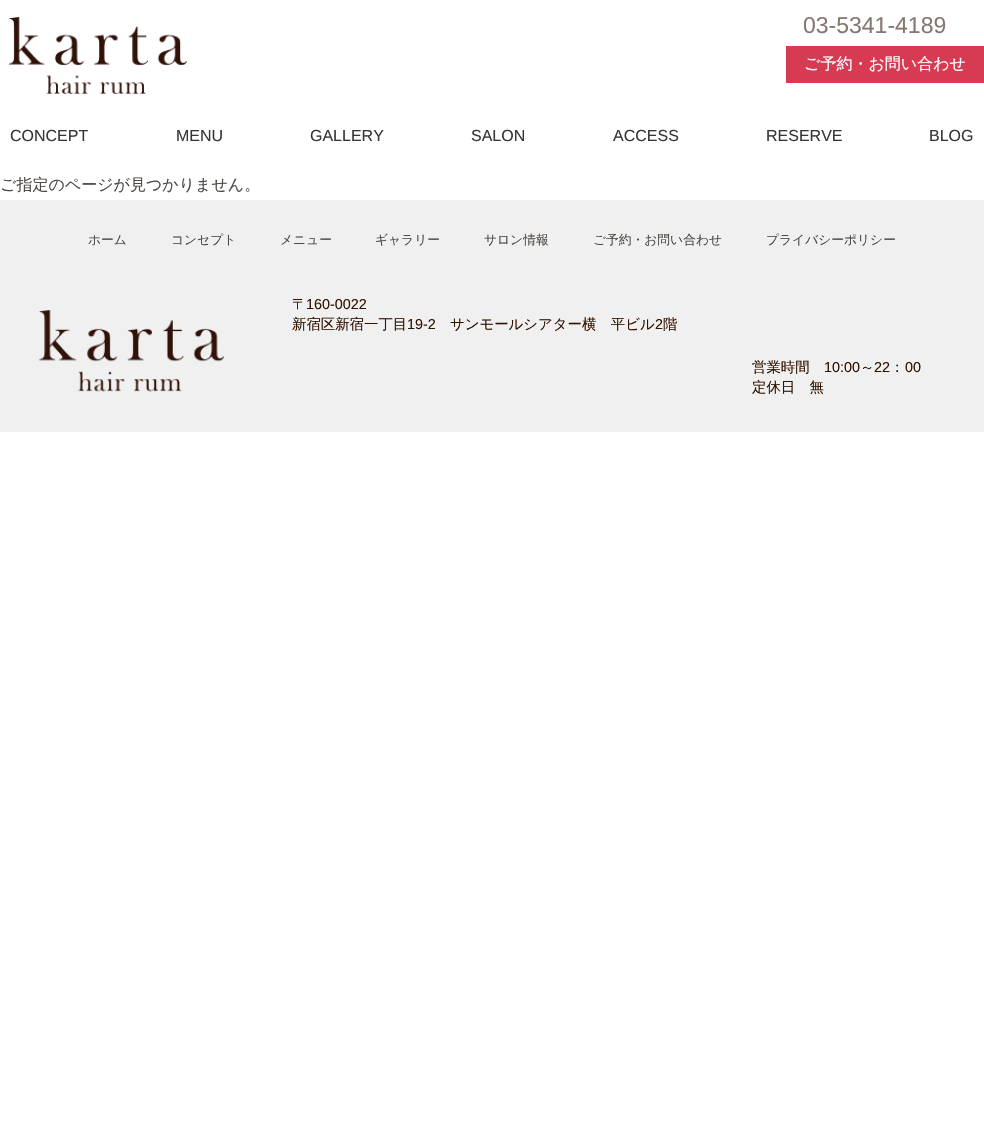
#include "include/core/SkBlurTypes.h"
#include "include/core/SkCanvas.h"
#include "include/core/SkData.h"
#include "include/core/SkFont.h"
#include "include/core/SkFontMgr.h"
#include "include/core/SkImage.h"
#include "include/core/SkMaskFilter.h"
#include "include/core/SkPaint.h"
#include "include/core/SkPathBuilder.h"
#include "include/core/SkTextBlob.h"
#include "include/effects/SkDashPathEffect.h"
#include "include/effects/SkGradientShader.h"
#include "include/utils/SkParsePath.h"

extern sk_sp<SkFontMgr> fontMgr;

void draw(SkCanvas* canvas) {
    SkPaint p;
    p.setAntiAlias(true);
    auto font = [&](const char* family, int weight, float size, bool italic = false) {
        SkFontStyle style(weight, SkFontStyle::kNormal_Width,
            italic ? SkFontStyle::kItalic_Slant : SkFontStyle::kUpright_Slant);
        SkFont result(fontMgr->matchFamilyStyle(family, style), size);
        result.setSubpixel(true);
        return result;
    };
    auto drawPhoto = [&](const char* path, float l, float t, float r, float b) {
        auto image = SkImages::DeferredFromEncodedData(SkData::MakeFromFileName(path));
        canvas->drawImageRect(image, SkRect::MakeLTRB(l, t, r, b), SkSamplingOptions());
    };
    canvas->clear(0xFFFFFFFF);
    drawPhoto("media/1.png", 9, 17, 188, 94);
    auto font1 = font("Liberation Sans", 400, 23);
    p.setColor(0xFF847870);
    canvas->drawString("03-5341-4189", 803, 33, font1, p);
    p.setColor(0xFFD63B53);
    canvas->drawRect(SkRect::MakeLTRB(786, 46, 984, 83), p);
    auto font2 = font("WenQuanYi Zen Hei", 500, 16);
    p.setColor(0xFFFFFFFF);
    canvas->drawString("ご予約・お問い合わせ", 804, 69, font2, p);
    auto font3 = font("Liberation Sans", 400, 16);
    p.setColor(0xFF353535);
    {
        const struct { const char* s; float x, y; } items[] = {
            {"CONCEPT", 10, 141},
            {"MENU", 176, 141},
            {"GALLERY", 310, 141},
            {"SALON", 471, 141},
            {"ACCESS", 613, 141},
            {"RESERVE", 766, 141},
            {"BLOG", 929, 141},
        };
        for (auto [s, x, y] : items) {
            canvas->drawString(s, x, y, font3, p);
        }
    }
    p.setColor(0xFF4F4946);
    canvas->drawString("ご指定のページが見つかりません。", 0, 190, font2, p);
    p.setColor(0xFFF0F0F0);
    canvas->drawRect(SkRect::MakeLTRB(0, 200, 984, 432), p);
    auto font4 = font("WenQuanYi Zen Hei", 500, 12.75f);
    p.setColor(0xFF4F4946);
    {
        const struct { const char* s; float x, y; } items[] = {
            {"ホーム", 88, 244},
            {"コンセプト", 171, 244},
            {"メニュー", 280, 244},
            {"ギャラリー", 375, 244},
            {"サロン情報", 484, 244},
            {"ご予約・お問い合わせ", 593, 244},
            {"プライバシーポリシー", 766, 244},
        };
        for (auto [s, x, y] : items) {
            canvas->drawString(s, x, y, font4, p);
        }
    }
    drawPhoto("media/2.png", 39, 310, 224, 392);
    auto font5 = font("WenQuanYi Zen Hei", 500, 14.4f);
    p.setColor(0xFF311300);
    canvas->drawString("〒", 292, 309, font5, p);
    auto font6 = font("Liberation Sans", 400, 14.4f);
    canvas->drawString("160-0022", 306, 309, font6, p);
    canvas->drawString("新宿区新宿一丁目", 292, 329, font5, p);
    canvas->drawString("19-2", 407, 329, font6, p);
    canvas->drawString("サンモールシアター横　平ビル", 450, 329, font5, p);
    canvas->drawString("2", 655, 329, font6, p);
    canvas->drawString("階", 663, 329, font5, p);
    canvas->drawString("営業時間", 752, 372, font5, p);
    canvas->drawString("10:00", 824, 372, font6, p);
    canvas->drawString("～", 860, 372, font5, p);
    canvas->drawString("22", 874, 372, font6, p);
    canvas->drawString("：", 890, 372, font5, p);
    canvas->drawString("00", 905, 372, font6, p);
    canvas->drawString("定休日　無", 752, 392, font5, p);
}
